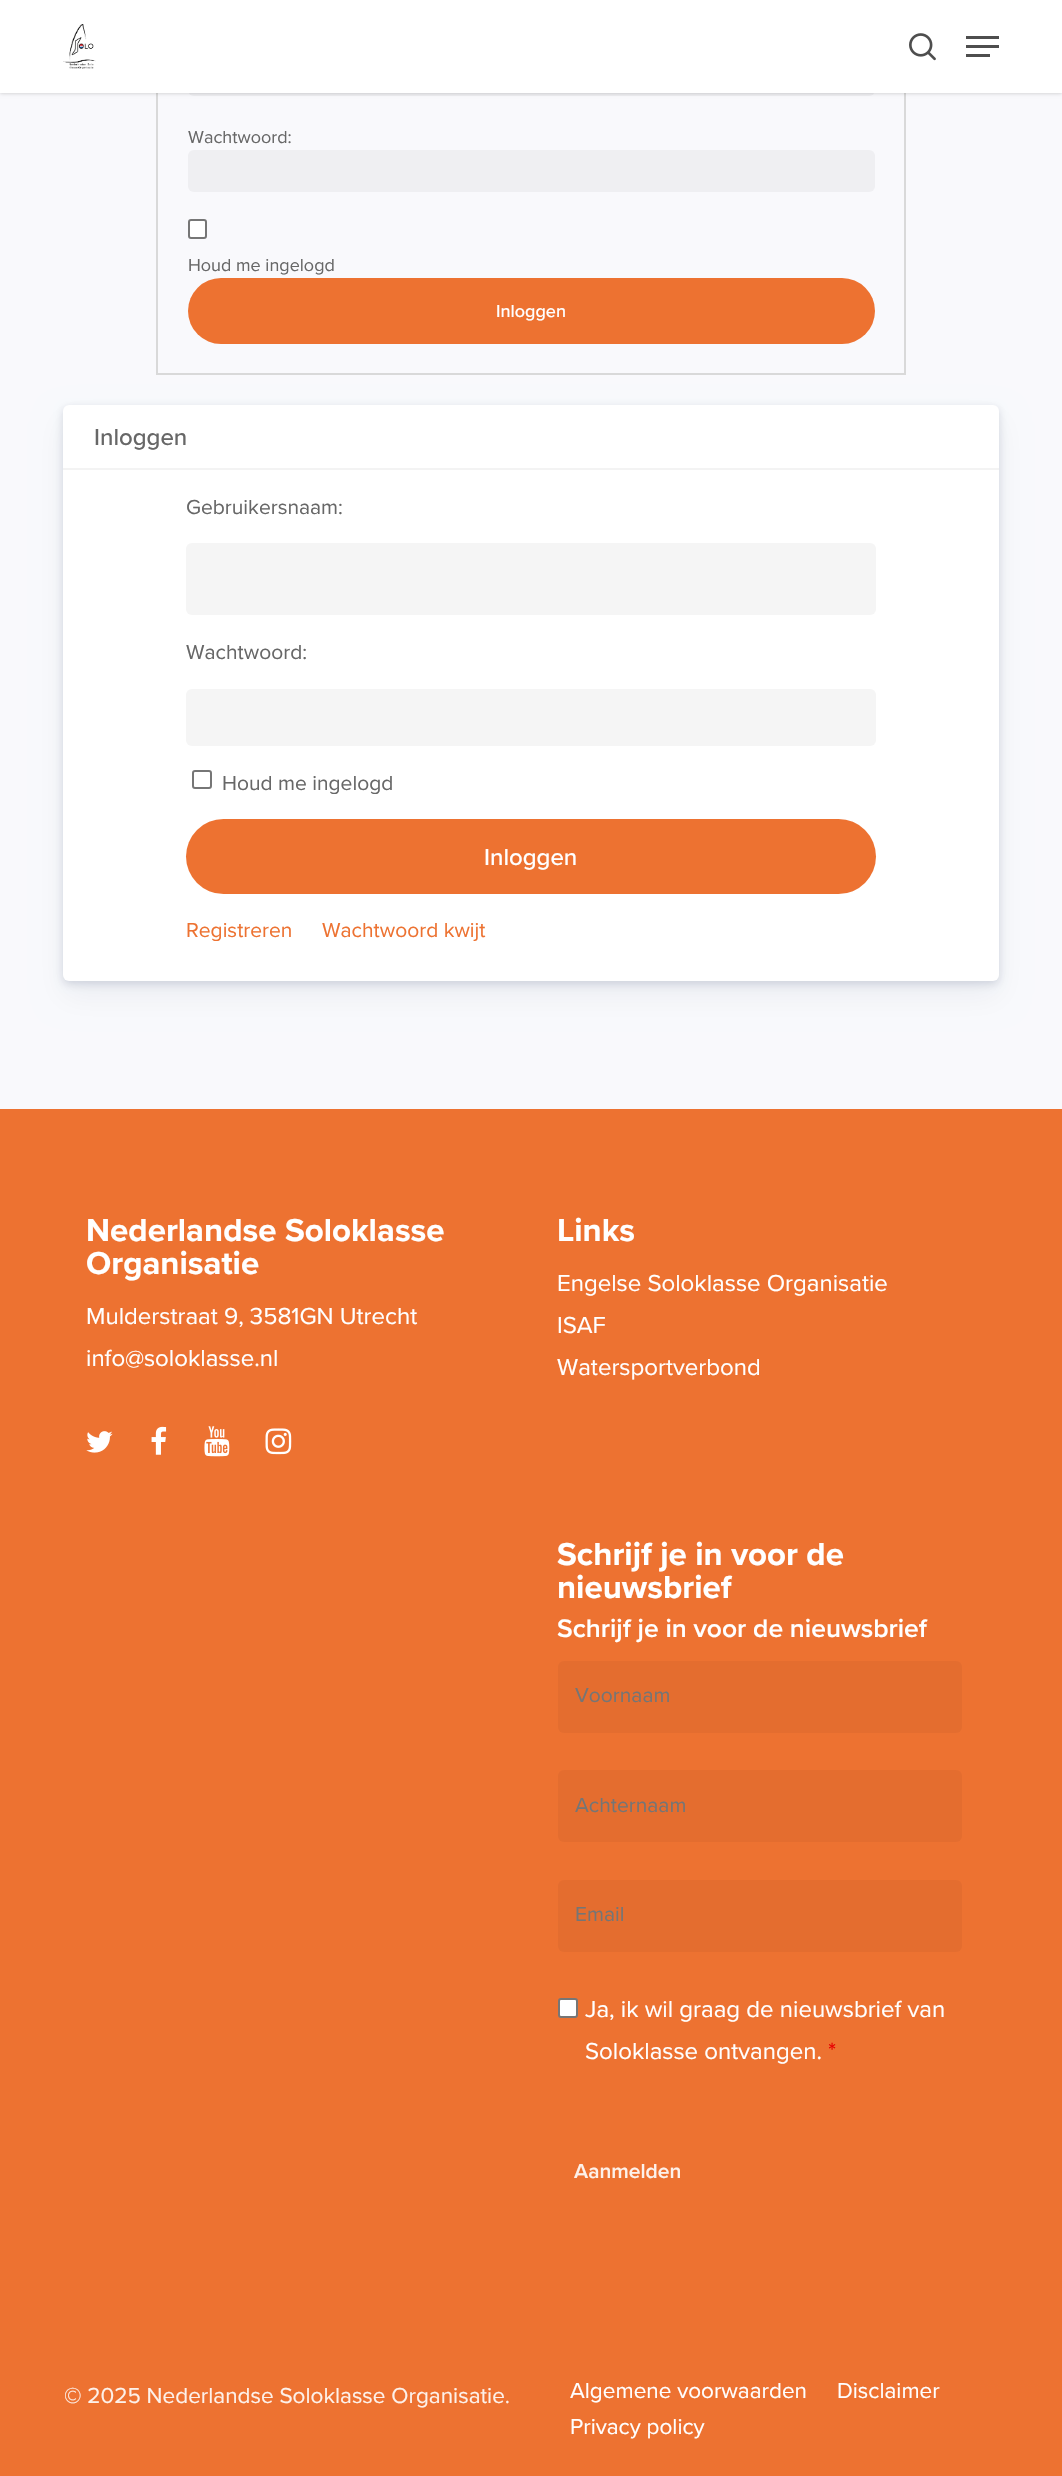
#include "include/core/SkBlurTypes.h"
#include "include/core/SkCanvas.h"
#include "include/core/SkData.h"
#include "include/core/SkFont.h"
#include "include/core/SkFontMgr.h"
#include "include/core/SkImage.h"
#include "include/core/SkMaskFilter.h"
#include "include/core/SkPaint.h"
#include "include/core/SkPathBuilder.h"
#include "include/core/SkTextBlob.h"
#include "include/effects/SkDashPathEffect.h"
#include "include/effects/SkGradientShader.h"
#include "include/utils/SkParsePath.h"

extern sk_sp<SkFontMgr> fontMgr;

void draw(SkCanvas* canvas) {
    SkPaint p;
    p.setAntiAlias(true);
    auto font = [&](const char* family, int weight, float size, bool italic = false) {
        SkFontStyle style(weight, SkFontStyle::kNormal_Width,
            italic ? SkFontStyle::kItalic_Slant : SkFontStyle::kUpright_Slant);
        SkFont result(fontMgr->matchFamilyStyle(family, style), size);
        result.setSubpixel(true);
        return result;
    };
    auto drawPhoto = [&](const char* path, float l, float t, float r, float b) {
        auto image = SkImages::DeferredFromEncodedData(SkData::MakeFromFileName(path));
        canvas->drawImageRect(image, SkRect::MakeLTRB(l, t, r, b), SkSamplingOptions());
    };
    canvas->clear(0xFFF9F9FC);
    p.setStyle(SkPaint::kStroke_Style);
    p.setStrokeWidth(2);
    p.setColor(0xFFD9D9D9);
    canvas->drawRect(SkRect::MakeLTRB(157, -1, 905, 374), p);
    p.setStyle(SkPaint::kFill_Style);
    p.setColor(0xFFEFEFF2);
    canvas->drawRoundRect(SkRect::MakeLTRB(188, 54, 875, 96), 6, 6, p);
    p.setColor(0x38000000);
    p.setMaskFilter(SkMaskFilter::MakeBlur(kNormal_SkBlurStyle, 2));
    canvas->drawRect(SkRect::MakeLTRB(0, 0, 1062, 93), p);
    p.setMaskFilter(nullptr);
    p.setColor(0xFFFFFFFF);
    canvas->drawRect(SkRect::MakeLTRB(0, 0, 1062, 93), p);
    drawPhoto("media/1.png", 63, 24, 96, 69);
    drawPhoto("media/2.png", 909, 33, 936, 61);
    {
        const struct { float l, t, r, b; SkColor color; } items[] = {
            {966, 36, 999, 39, 0xFF4E4E4E},
            {966, 54, 990, 57, 0xFF4E4E4E},
            {966, 45, 999, 48, 0xFF4E4E4E},
        };
        for (auto [l, t, r, b, color] : items) {
            p.setColor(color);
            canvas->drawRect(SkRect::MakeLTRB(l, t, r, b), p);
        }
    }
    auto font1 = font("Proxima Nova", 400, 18);
    p.setColor(0xFF676767);
    canvas->drawString("Wachtwoord:", 188, 143, font1, p);
    p.setColor(0xFFEFEFF2);
    canvas->drawRoundRect(SkRect::MakeLTRB(188, 150, 875, 192), 6, 6, p);
    p.setColor(0xFFFFFFFF);
    canvas->drawRoundRect(SkRect::MakeLTRB(189, 220, 206, 238), 2, 2, p);
    p.setStyle(SkPaint::kStroke_Style);
    p.setColor(0xFF767676);
    canvas->drawRoundRect(SkRect::MakeLTRB(189, 220, 206, 238), 2, 2, p);
    p.setStyle(SkPaint::kFill_Style);
    p.setColor(0xFF676767);
    canvas->drawString("Houd me ingelogd", 188, 271, font1, p);
    p.setColor(0xFFED7231);
    canvas->drawRoundRect(SkRect::MakeLTRB(188, 278, 875, 344), 33, 33, p);
    auto font2 = font("Proxima Nova", 500, 18);
    p.setColor(0xFFFFFFFF);
    canvas->drawString("Inloggen", 496, 317, font2, p);
    p.setColor(0x0D001540);
    p.setMaskFilter(SkMaskFilter::MakeBlur(kNormal_SkBlurStyle, 15));
    canvas->drawRoundRect(SkRect::MakeLTRB(63, 420, 999, 996), 6, 6, p);
    p.setMaskFilter(nullptr);
    p.setColor(0x24001540);
    p.setMaskFilter(SkMaskFilter::MakeBlur(kNormal_SkBlurStyle, 4.5f));
    canvas->drawRoundRect(SkRect::MakeLTRB(63, 408, 999, 984), 6, 6, p);
    p.setMaskFilter(nullptr);
    p.setColor(0xFFFFFFFF);
    canvas->drawRoundRect(SkRect::MakeLTRB(63, 405, 999, 981), 6, 6, p);
    p.setColor(0xFFF3F3F3);
    canvas->drawRect(SkRect::MakeLTRB(63, 468, 999, 470), p);
    auto font3 = font("Proxima Nova", 500, 24);
    p.setColor(0xFF676767);
    canvas->drawString("Inloggen", 94, 445, font3, p);
    auto font4 = font("Proxima Nova", 400, 21);
    canvas->drawString("Gebruikersnaam:", 186, 514, font4, p);
    p.setColor(0xFFF5F5F5);
    canvas->drawRoundRect(SkRect::MakeLTRB(186, 543, 876, 615), 6, 6, p);
    p.setColor(0xFF676767);
    canvas->drawString("Wachtwoord:", 186, 659, font4, p);
    p.setColor(0xFFF5F5F5);
    canvas->drawRoundRect(SkRect::MakeLTRB(186, 689, 876, 746), 6, 6, p);
    p.setStyle(SkPaint::kStroke_Style);
    p.setColor(0xFF767676);
    canvas->drawRoundRect(SkRect::MakeLTRB(193, 771, 211, 788), 2, 2, p);
    p.setStyle(SkPaint::kFill_Style);
    p.setColor(0xFF676767);
    canvas->drawString("Houd me ingelogd", 222, 790, font4, p);
    p.setColor(0xFFED7231);
    canvas->drawRoundRect(SkRect::MakeLTRB(186, 819, 876, 894), 37.5f, 37.5f, p);
    p.setColor(0xFFFFFFFF);
    canvas->drawString("Inloggen", 484, 865, font3, p);
    p.setColor(0xFFED7231);
    canvas->drawString("Registreren", 186, 937, font4, p);
    canvas->drawString("Wachtwoord kwijt", 322, 937, font4, p);
    canvas->drawRect(SkRect::MakeLTRB(0, 1109, 1062, 2476), p);
    auto font5 = font("Proxima Nova", 700, 33);
    p.setColor(0xFFFFFFFF);
    canvas->drawString("Nederlandse Soloklasse", 86, 1241, font5, p);
    canvas->drawString("Organisatie", 86, 1274, font5, p);
    auto font6 = font("Proxima Nova", 400, 24);
    canvas->drawString("Mulderstraat 9, 3581GN Utrecht", 86, 1324, font6, p);
    canvas->drawString("info@soloklasse.nl", 86, 1366, font6, p);
    drawPhoto("media/3.png", 86, 1431, 113, 1453);
    drawPhoto("media/4.png", 151, 1426, 167, 1455);
    drawPhoto("media/5.png", 204, 1426, 230, 1457);
    drawPhoto("media/6.png", 265, 1428, 292, 1455);
    canvas->drawString("Links", 557, 1241, font5, p);
    {
        const struct { const char* s; float x, y; } items[] = {
            {"Engelse Soloklasse Organisatie", 557, 1291},
            {"ISAF", 557, 1333},
            {"Watersportverbond", 557, 1375},
        };
        for (auto [s, x, y] : items) {
            canvas->drawString(s, x, y, font6, p);
        }
    }
    canvas->drawString("Schrijf je in voor de", 557, 1565, font5, p);
    canvas->drawString("nieuwsbrief", 557, 1598, font5, p);
    auto font7 = font("Proxima Nova", 600, 26.4f);
    canvas->drawString("Schrijf je in voor de nieuwsbrief", 557, 1637, font7, p);
    p.setColor(0xFFE46D2F);
    canvas->drawRoundRect(SkRect::MakeLTRB(558, 1661, 962, 1733), 6, 6, p);
    p.setColor(0xFF757575);
    canvas->drawString("Voornaam", 575, 1702, font4, p);
    p.setColor(0xFFE46D2F);
    canvas->drawRoundRect(SkRect::MakeLTRB(558, 1770, 962, 1842), 6, 6, p);
    p.setColor(0xFF757575);
    canvas->drawString("Achternaam", 575, 1812, font4, p);
    p.setColor(0xFFE46D2F);
    canvas->drawRoundRect(SkRect::MakeLTRB(558, 1880, 962, 1952), 6, 6, p);
    p.setColor(0xFF757575);
    canvas->drawString("Email", 575, 1921, font4, p);
    p.setColor(0xFFFFFFFF);
    canvas->drawRoundRect(SkRect::MakeLTRB(559, 1999, 577, 2017), 2, 2, p);
    p.setStyle(SkPaint::kStroke_Style);
    p.setColor(0xFF767676);
    canvas->drawRoundRect(SkRect::MakeLTRB(559, 1999, 577, 2017), 2, 2, p);
    p.setStyle(SkPaint::kFill_Style);
    p.setColor(0xFFFFFFFF);
    canvas->drawString("Ja, ik wil graag de nieuwsbrief van", 585, 2017, font6, p);
    canvas->drawString("Soloklasse ontvangen.", 585, 2059, font6, p);
    p.setColor(0xFFE80000);
    canvas->drawString("*", 828, 2059, font6, p);
    auto font8 = font("Proxima Nova", 600, 21);
    p.setColor(0xFFFDF1EA);
    canvas->drawString("Aanmelden", 574, 2178, font8, p);
    auto font9 = font("Proxima Nova", 400, 22.5f);
    canvas->drawString("© 2025 Nederlandse Soloklasse Organisatie.", 64, 2403, font9, p);
    p.setColor(0xFFFFFFFF);
    {
        const struct { const char* s; float x, y; } items[] = {
            {"Algemene voorwaarden", 570, 2398},
            {"Disclaimer", 837, 2398},
            {"Privacy policy", 570, 2434},
        };
        for (auto [s, x, y] : items) {
            canvas->drawString(s, x, y, font9, p);
        }
    }
}
